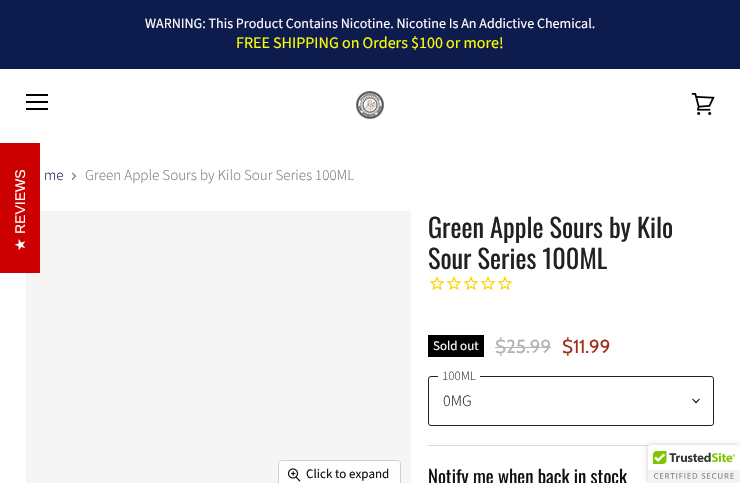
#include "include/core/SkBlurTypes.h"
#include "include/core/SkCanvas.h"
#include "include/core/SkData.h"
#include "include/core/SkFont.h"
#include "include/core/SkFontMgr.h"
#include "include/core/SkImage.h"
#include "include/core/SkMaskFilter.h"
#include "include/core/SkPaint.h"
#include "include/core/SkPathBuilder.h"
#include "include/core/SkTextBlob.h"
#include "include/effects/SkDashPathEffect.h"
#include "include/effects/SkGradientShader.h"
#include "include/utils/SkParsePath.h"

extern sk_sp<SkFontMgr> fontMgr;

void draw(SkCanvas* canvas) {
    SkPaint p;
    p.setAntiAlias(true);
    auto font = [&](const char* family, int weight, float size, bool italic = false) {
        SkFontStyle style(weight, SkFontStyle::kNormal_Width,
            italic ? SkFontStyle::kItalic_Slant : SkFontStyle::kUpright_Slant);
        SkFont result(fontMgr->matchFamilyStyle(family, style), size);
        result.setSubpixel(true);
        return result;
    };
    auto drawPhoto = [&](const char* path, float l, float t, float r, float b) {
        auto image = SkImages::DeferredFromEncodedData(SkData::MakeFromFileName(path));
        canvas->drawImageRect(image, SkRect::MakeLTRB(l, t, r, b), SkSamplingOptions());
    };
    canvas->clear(0xFFFFFFFF);
    p.setColor(0xFF0E1B4D);
    canvas->drawRect(SkRect::MakeLTRB(0, 0, 740, 69), p);
    auto font1 = font("Source Sans Pro", 400, 14.05f);
    p.setColor(0xFFFFFFFF);
    canvas->drawString("WARNING: This Product Contains Nicotine. Nicotine Is An Addictive Chemical.", 145, 28, font1, p);
    auto font2 = font("Source Sans Pro", 400, 16);
    p.setColor(0xFFF9FC04);
    canvas->drawString("FREE SHIPPING on Orders $100 or more!", 236, 48, font2, p);
    {
        const struct { float l, t, r, b; SkColor color; } items[] = {
            {26, 94, 48, 96, 0xFF000000},
            {26, 101, 48, 103, 0xFF000000},
            {26, 108, 48, 110, 0xFF000000},
        };
        for (auto [l, t, r, b, color] : items) {
            p.setColor(color);
            canvas->drawRect(SkRect::MakeLTRB(l, t, r, b), p);
        }
    }
    drawPhoto("media/1.png", 355, 90, 385, 120);
    drawPhoto("media/2.png", 691, 93, 715, 115);
    p.setColor(0xFFF5F5F5);
    canvas->drawRect(SkRect::MakeLTRB(26, 211, 411, 483), p);
    p.setColor(0xFFCC0000);
    canvas->drawRect(SkRect::MakeLTRB(0, 143, 40, 273), p);
    auto font3 = font("Liberation Sans", 400, 14);
    p.setColor(0xFFFFFFFF);
    canvas->save();
    canvas->rotate(-90, 25, 234);
    canvas->drawString("REVIEWS", 25, 234, font3, p);
    canvas->restore();
    auto font4 = font("DejaVu Sans", 400, 14);
    canvas->save();
    canvas->rotate(-90, 25, 251);
    canvas->drawString("★", 25, 251, font4, p);
    canvas->restore();
    auto font5 = font("Source Sans Pro", 300, 15);
    p.setColor(0xFF0E1B4D);
    canvas->drawString("me", 44, 180, font5, p);
    canvas->save();
    canvas->clipPath(SkPathBuilder().moveTo(72, 180).lineTo(72, 172).lineTo(77, 172).lineTo(77, 180).close().detach(), true);
    p.setStyle(SkPaint::kStroke_Style);
    p.setStrokeWidth(1.2f);
    p.setColor(0xFF7C7873);
    canvas->drawPath(SkPathBuilder().moveTo(72, 180).lineTo(75.5f, 176).lineTo(72, 173).detach(), p);
    canvas->restore();
    p.setStyle(SkPaint::kFill_Style);
    canvas->drawString("Green Apple Sours by Kilo Sour Series 100ML", 85, 180, font5, p);
    p.setStyle(SkPaint::kStroke_Style);
    p.setStrokeWidth(1);
    p.setColor(0xFFD0D0D0);
    canvas->drawRoundRect(SkRect::MakeLTRB(278.5f, 460.5f, 400.5f, 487.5f), 3.5f, 3.5f, p);
    p.setStyle(SkPaint::kFill_Style);
    p.setColor(0xE6FFFFFF);
    canvas->drawRoundRect(SkRect::MakeLTRB(279, 461, 400, 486), 3, 3, p);
    drawPhoto("media/3.png", 288, 468, 301, 482);
    auto font6 = font("Source Sans Pro", 400, 13);
    p.setColor(0xFF111111);
    canvas->drawString("Click to expand", 306, 478, font6, p);
    auto font7 = font("Oswald", 400, 26.25f);
    p.setColor(0xFF212121);
    canvas->drawString("Green Apple Sours by Kilo", 428, 238, font7, p);
    canvas->drawString("Sour Series 100ML", 428, 269, font7, p);
    drawPhoto("media/4.png", 429, 276, 445, 291);
    drawPhoto("media/4.png", 446, 276, 462, 291);
    drawPhoto("media/4.png", 463, 276, 479, 291);
    drawPhoto("media/4.png", 480, 276, 496, 291);
    drawPhoto("media/4.png", 497, 276, 513, 291);
    p.setColor(0xFF000000);
    canvas->drawRect(SkRect::MakeLTRB(428, 335, 484, 357), p);
    p.setColor(0xFFFFFFFF);
    canvas->drawString("Sold out", 433, 350, font6, p);
    auto font8 = font("Cabin", 400, 18.75f);
    p.setColor(0xFFB4B4B4);
    canvas->drawString("$25.99", 495, 353, font8, p);
    canvas->drawRect(SkRect::MakeLTRB(495, 347, 551, 348), p);
    p.setColor(0xFFA12F18);
    canvas->drawString("$11.99", 562, 353, font8, p);
    p.setStyle(SkPaint::kStroke_Style);
    p.setColor(0xFF212121);
    canvas->drawRoundRect(SkRect::MakeLTRB(428.5f, 376.5f, 713.5f, 425.5f), 2.5f, 2.5f, p);
    p.setStyle(SkPaint::kFill_Style);
    p.setColor(0xFFFFFFFF);
    canvas->drawRect(SkRect::MakeLTRB(438, 376, 480, 377), p);
    auto font9 = font("Source Sans Pro", 300, 13);
    p.setColor(0xFF333333);
    canvas->drawString("100ML", 442, 380, font9, p);
    auto font10 = font("Source Sans Pro", 300, 16);
    p.setColor(0xFF212121);
    canvas->drawString("0MG", 443, 406, font10, p);
    drawPhoto("media/5.png", 692, 398, 700, 404);
    p.setColor(0xFFD9D9D9);
    canvas->drawRect(SkRect::MakeLTRB(428, 445, 650, 446), p);
    auto font11 = font("Oswald", 400, 18.75f);
    p.setColor(0xFF111111);
    canvas->drawString("Notify me when back in stock", 428, 484, font11, p);
    p.setColor(0x33000000);
    p.setMaskFilter(SkMaskFilter::MakeBlur(kNormal_SkBlurStyle, 2.5f));
    canvas->drawRoundRect(SkRect::MakeLTRB(648, 445, 740, 483), 2, 2, p);
    p.setMaskFilter(nullptr);
    p.setColor(0xFFFFFFFF);
    canvas->drawPath(SkPathBuilder().moveTo(650, 445).lineTo(740, 445).lineTo(740, 483).lineTo(648, 483).lineTo(648, 447).cubicTo(648, 446, 649, 445, 650, 445).close().detach(), p);
    drawPhoto("media/6.png", 648, 445, 740, 483);
}
